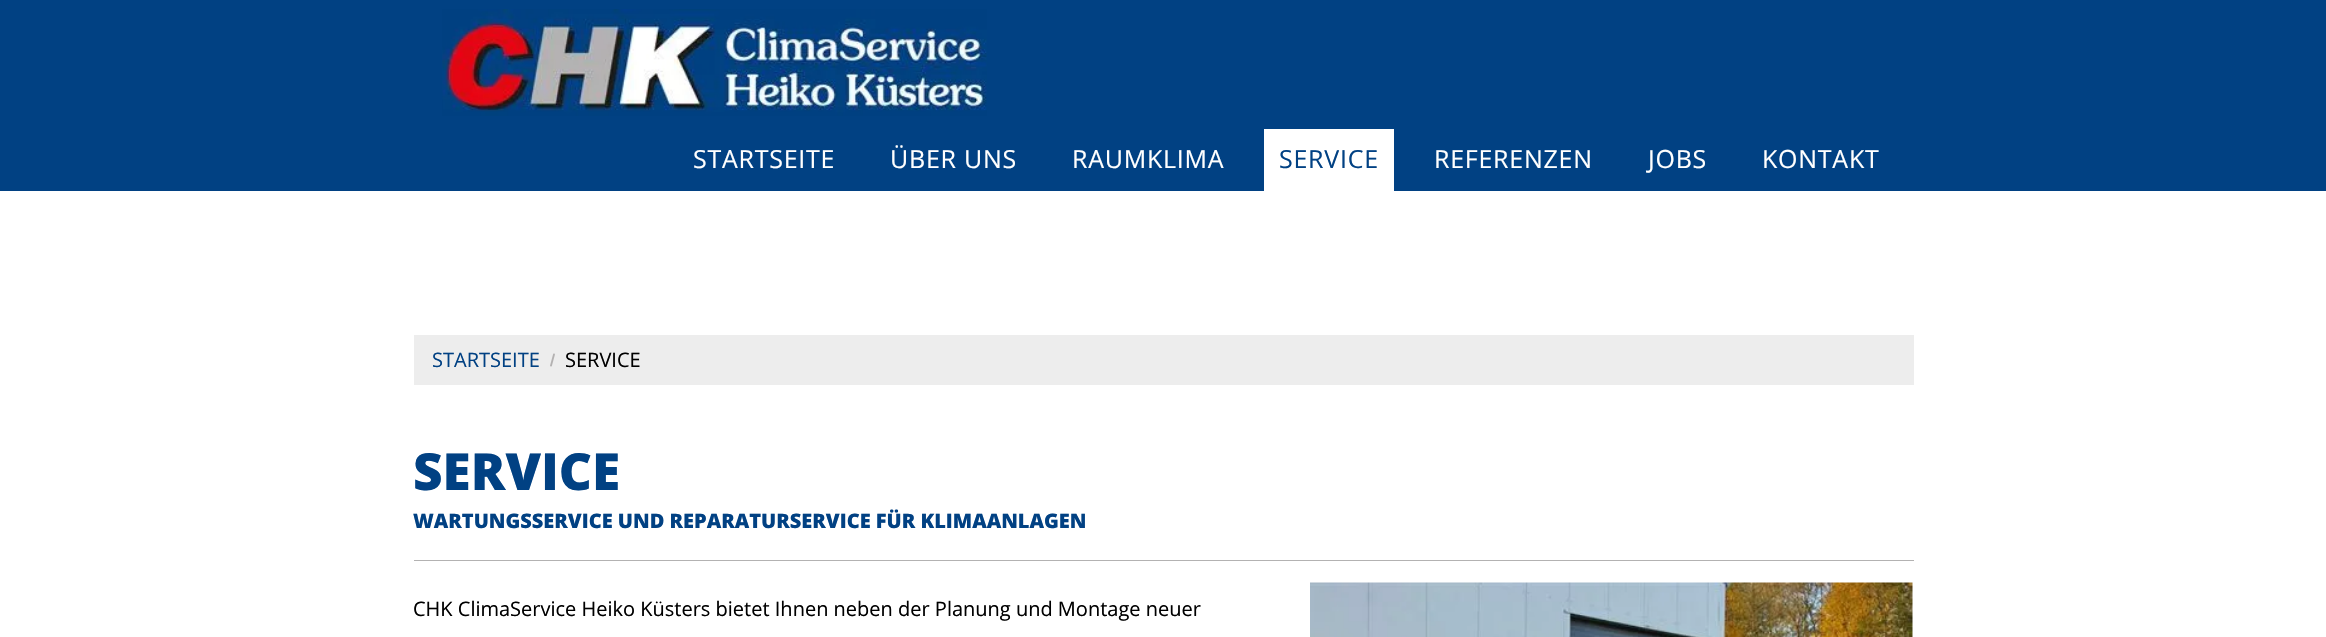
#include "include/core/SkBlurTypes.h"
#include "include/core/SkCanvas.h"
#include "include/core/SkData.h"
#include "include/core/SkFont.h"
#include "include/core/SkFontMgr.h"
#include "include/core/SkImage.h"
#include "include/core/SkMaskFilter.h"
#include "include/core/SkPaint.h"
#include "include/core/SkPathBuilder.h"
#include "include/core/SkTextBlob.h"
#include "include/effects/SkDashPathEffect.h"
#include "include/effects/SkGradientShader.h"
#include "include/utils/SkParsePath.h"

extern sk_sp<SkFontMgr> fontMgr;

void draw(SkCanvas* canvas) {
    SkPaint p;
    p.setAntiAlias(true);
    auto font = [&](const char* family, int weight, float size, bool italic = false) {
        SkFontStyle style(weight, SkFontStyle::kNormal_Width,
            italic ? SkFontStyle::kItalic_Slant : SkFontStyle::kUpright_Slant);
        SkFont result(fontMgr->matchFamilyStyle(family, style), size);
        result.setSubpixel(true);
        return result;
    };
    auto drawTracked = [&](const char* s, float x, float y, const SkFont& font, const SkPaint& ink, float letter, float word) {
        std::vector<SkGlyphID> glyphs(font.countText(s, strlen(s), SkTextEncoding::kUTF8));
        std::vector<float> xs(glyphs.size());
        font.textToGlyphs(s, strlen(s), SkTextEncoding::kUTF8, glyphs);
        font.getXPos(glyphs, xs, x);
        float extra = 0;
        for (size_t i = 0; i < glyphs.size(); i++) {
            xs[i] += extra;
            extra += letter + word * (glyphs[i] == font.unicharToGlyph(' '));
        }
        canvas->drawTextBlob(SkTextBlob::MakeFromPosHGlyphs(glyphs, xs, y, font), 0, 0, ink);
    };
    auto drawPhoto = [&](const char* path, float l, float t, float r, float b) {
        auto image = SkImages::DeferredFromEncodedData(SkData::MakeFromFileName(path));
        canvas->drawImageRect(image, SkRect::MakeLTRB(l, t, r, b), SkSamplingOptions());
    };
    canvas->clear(0xFFFFFFFF);
    p.setColor(0xFF014183);
    canvas->drawRect(SkRect::MakeLTRB(0, 0, 2326, 191), p);
    drawPhoto("media/1.png", 442, 9, 987, 116);
    auto font1 = font("Open Sans", 400, 25);
    p.setColor(0xFFFFFFFF);
    {
        const struct { const char* s; float x, y; } items[] = {
            {"STARTSEITE", 693, 168},
            {"ÜBER UNS", 890, 168},
            {"RAUMKLIMA", 1072, 168},
        };
        for (auto [s, x, y] : items) {
            drawTracked(s, x, y, font1, p, 0.75f, 0);
        }
    }
    canvas->drawRect(SkRect::MakeLTRB(1264, 129, 1394, 191), p);
    p.setColor(0xFF014183);
    drawTracked("SERVICE", 1279, 168, font1, p, 0.75f, 0);
    p.setColor(0xFFFFFFFF);
    {
        const struct { const char* s; float x, y; } items[] = {
            {"REFERENZEN", 1434, 168},
            {"JOBS", 1648, 168},
            {"KONTAKT", 1762, 168},
        };
        for (auto [s, x, y] : items) {
            drawTracked(s, x, y, font1, p, 0.75f, 0);
        }
    }
    p.setColor(0xFFEDEDED);
    canvas->drawRect(SkRect::MakeLTRB(414, 335, 1914, 385), p);
    auto font2 = font("Open Sans", 400, 20);
    p.setColor(0xFF014183);
    canvas->drawString("STARTSEITE", 432, 367, font2, p);
    drawPhoto("media/2.png", 550, 353, 555, 367);
    p.setColor(0xFF000000);
    canvas->drawString("SERVICE", 565, 367, font2, p);
    auto font3 = font("Open Sans", 800, 51.25f);
    p.setColor(0xFF014183);
    canvas->drawString("SERVICE", 413, 490, font3, p);
    auto font4 = font("Open Sans", 800, 20);
    canvas->drawString("WARTUNGSSERVICE UND REPARATURSERVICE FÜR KLIMAANLAGEN", 413, 528, font4, p);
    p.setColor(0xFFB3B2B2);
    canvas->drawRect(SkRect::MakeLTRB(414, 560, 1914, 561), p);
    p.setColor(0xFF000000);
    canvas->drawString("CHK ClimaService Heiko Küsters bietet Ihnen neben der Planung und Montage neuer", 413, 616, font2, p);
    drawPhoto("media/3.png", 1310, 582, 1913, 637);
}
